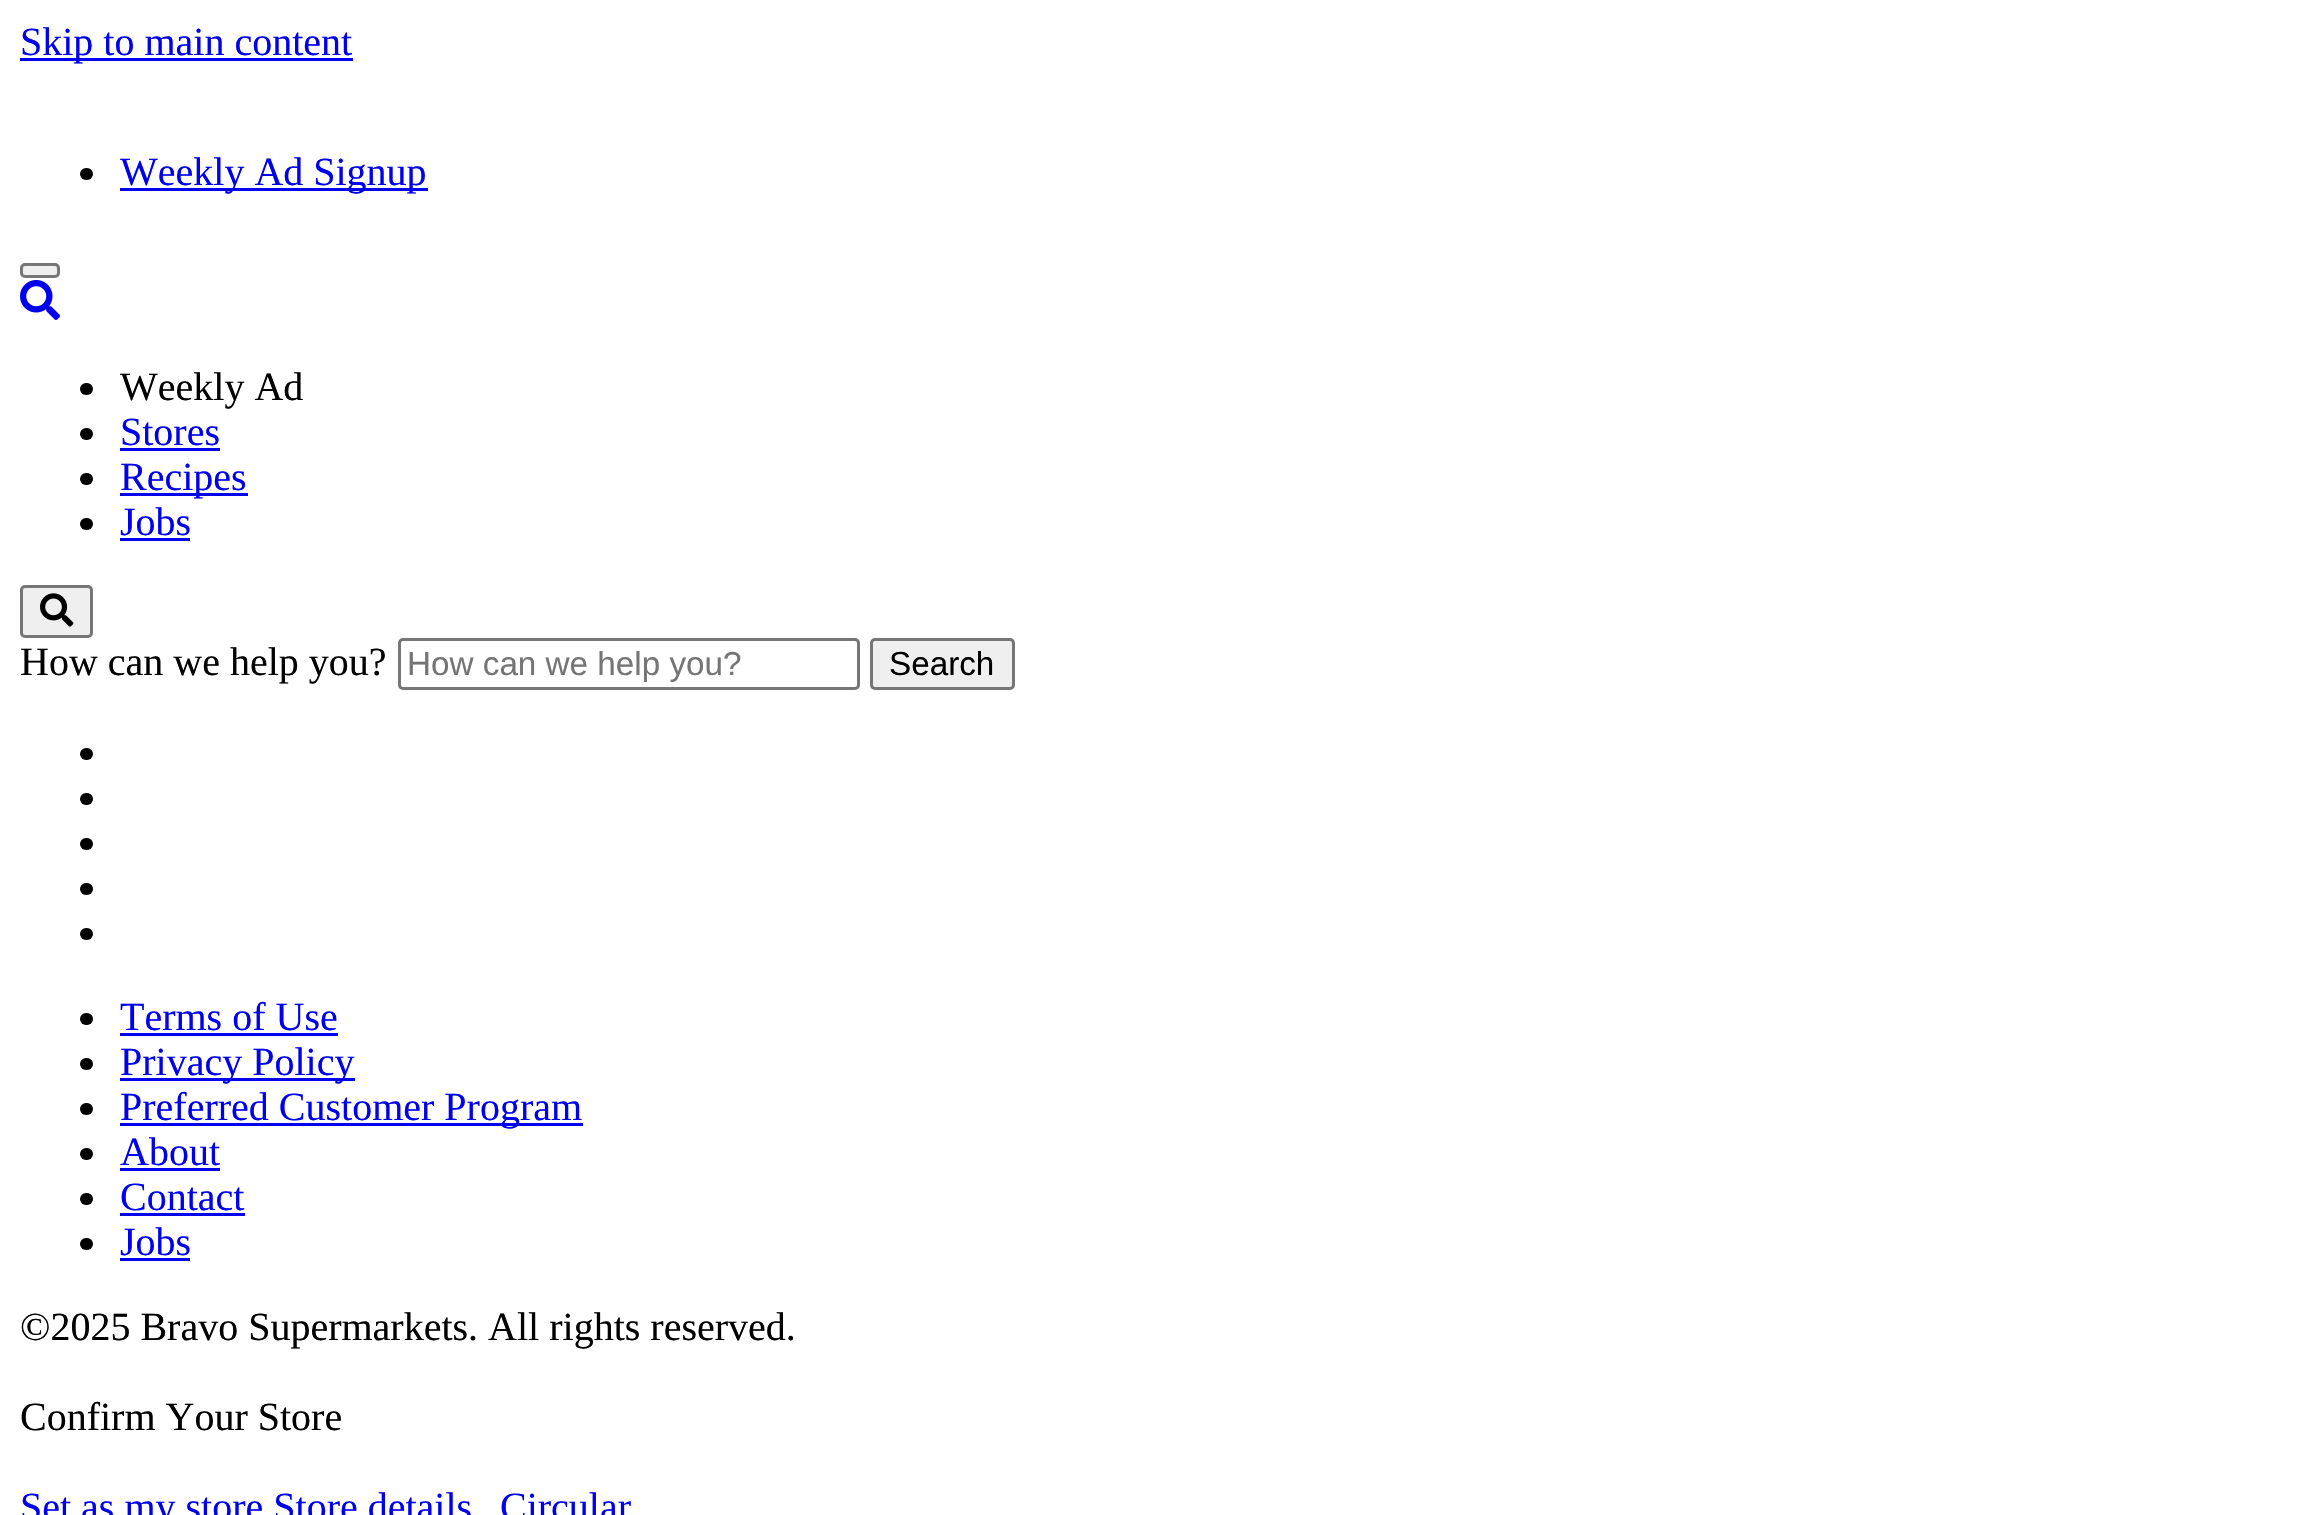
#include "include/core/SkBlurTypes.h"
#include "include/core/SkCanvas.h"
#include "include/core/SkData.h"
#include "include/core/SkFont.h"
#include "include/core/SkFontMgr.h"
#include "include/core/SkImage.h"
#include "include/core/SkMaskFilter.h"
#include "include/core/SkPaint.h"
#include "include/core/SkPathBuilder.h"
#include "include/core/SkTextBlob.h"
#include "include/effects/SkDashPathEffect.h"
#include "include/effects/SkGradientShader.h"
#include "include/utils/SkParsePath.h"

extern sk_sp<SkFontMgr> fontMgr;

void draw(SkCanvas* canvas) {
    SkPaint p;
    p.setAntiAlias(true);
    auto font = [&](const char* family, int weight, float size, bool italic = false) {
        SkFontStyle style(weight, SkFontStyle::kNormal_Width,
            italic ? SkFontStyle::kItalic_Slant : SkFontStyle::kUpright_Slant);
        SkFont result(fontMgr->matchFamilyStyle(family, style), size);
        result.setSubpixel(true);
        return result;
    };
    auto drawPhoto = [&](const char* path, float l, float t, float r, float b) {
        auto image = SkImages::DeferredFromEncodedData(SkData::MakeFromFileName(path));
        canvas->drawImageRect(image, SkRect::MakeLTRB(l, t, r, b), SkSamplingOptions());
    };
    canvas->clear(0xFFFFFFFF);
    p.setColor(0xFF0000EE);
    canvas->drawRect(SkRect::MakeLTRB(20, 58, 353, 61), p);
    auto font1 = font("Liberation Serif", 400, 40);
    canvas->drawString("Skip to main content", 20, 55, font1, p);
    p.setColor(0xFF000000);
    canvas->drawRoundRect(SkRect::MakeLTRB(80, 168, 93, 180), 6, 6, p);
    p.setColor(0xFF0000EE);
    canvas->drawRect(SkRect::MakeLTRB(120, 188, 428, 191), p);
    canvas->drawString("Weekly Ad Signup", 120, 185, font1, p);
    p.setColor(0xFFEFEFEF);
    canvas->drawRoundRect(SkRect::MakeLTRB(21.5f, 264.5f, 58.5f, 276.5f), 3.5f, 3.5f, p);
    p.setStyle(SkPaint::kStroke_Style);
    p.setStrokeWidth(3);
    p.setColor(0xFF767676);
    canvas->drawRoundRect(SkRect::MakeLTRB(21.5f, 264.5f, 58.5f, 276.5f), 3.5f, 3.5f, p);
    drawPhoto("media/1.png", 20, 280, 60, 320);
    p.setStyle(SkPaint::kFill_Style);
    p.setColor(0xFF000000);
    canvas->drawRoundRect(SkRect::MakeLTRB(80, 383, 93, 395), 6, 6, p);
    canvas->drawString("Weekly Ad", 120, 400, font1, p);
    canvas->drawRoundRect(SkRect::MakeLTRB(80, 428, 93, 440), 6, 6, p);
    p.setColor(0xFF0000EE);
    canvas->drawString("Stores", 120, 445, font1, p);
    canvas->drawRect(SkRect::MakeLTRB(120, 448, 220, 451), p);
    p.setColor(0xFF000000);
    canvas->drawRoundRect(SkRect::MakeLTRB(80, 473, 93, 485), 6, 6, p);
    p.setColor(0xFF0000EE);
    canvas->drawRect(SkRect::MakeLTRB(120, 493, 248, 496), p);
    canvas->drawString("Recipes", 120, 490, font1, p);
    p.setColor(0xFF000000);
    canvas->drawRoundRect(SkRect::MakeLTRB(80, 518, 93, 530), 6, 6, p);
    p.setColor(0xFF0000EE);
    canvas->drawString("Jobs", 120, 535, font1, p);
    canvas->drawRect(SkRect::MakeLTRB(120, 538, 190, 541), p);
    p.setColor(0xFFEFEFEF);
    canvas->drawRoundRect(SkRect::MakeLTRB(21.5f, 586.5f, 91.5f, 636.5f), 3.5f, 3.5f, p);
    p.setStyle(SkPaint::kStroke_Style);
    p.setColor(0xFF767676);
    canvas->drawRoundRect(SkRect::MakeLTRB(21.5f, 586.5f, 91.5f, 636.5f), 3.5f, 3.5f, p);
    drawPhoto("media/2.png", 40, 593, 74, 627);
    p.setStyle(SkPaint::kFill_Style);
    p.setColor(0xFF000000);
    canvas->drawString("How can we help you?", 20, 675, font1, p);
    p.setStyle(SkPaint::kStroke_Style);
    p.setColor(0xFF767676);
    canvas->drawRoundRect(SkRect::MakeLTRB(399.5f, 639.5f, 858.5f, 688.5f), 3.5f, 3.5f, p);
    auto font2 = font("Liberation Sans", 400, 33.25f);
    p.setStyle(SkPaint::kFill_Style);
    p.setColor(0xFF757575);
    canvas->drawString("How can we help you?", 407, 675, font2, p);
    p.setColor(0xFFEFEFEF);
    canvas->drawRoundRect(SkRect::MakeLTRB(871.5f, 639.5f, 1013.5f, 688.5f), 3.5f, 3.5f, p);
    p.setStyle(SkPaint::kStroke_Style);
    p.setColor(0xFF767676);
    canvas->drawRoundRect(SkRect::MakeLTRB(871.5f, 639.5f, 1013.5f, 688.5f), 3.5f, 3.5f, p);
    p.setStyle(SkPaint::kFill_Style);
    p.setColor(0xFF000000);
    canvas->drawString("Search", 889, 675, font2, p);
    canvas->drawRoundRect(SkRect::MakeLTRB(80, 748, 93, 760), 6, 6, p);
    canvas->drawRoundRect(SkRect::MakeLTRB(80, 793, 93, 805), 6, 6, p);
    canvas->drawRoundRect(SkRect::MakeLTRB(80, 838, 93, 850), 6, 6, p);
    canvas->drawRoundRect(SkRect::MakeLTRB(80, 883, 93, 895), 6, 6, p);
    canvas->drawRoundRect(SkRect::MakeLTRB(80, 928, 93, 940), 6, 6, p);
    canvas->drawRoundRect(SkRect::MakeLTRB(80, 1013, 93, 1025), 6, 6, p);
    p.setColor(0xFF0000EE);
    canvas->drawString("Terms of Use", 120, 1030, font1, p);
    canvas->drawRect(SkRect::MakeLTRB(120, 1033, 338, 1036), p);
    p.setColor(0xFF000000);
    canvas->drawRoundRect(SkRect::MakeLTRB(80, 1058, 93, 1070), 6, 6, p);
    p.setColor(0xFF0000EE);
    canvas->drawRect(SkRect::MakeLTRB(120, 1078, 355, 1081), p);
    canvas->drawString("Privacy Policy", 120, 1075, font1, p);
    p.setColor(0xFF000000);
    canvas->drawRoundRect(SkRect::MakeLTRB(80, 1103, 93, 1115), 6, 6, p);
    p.setColor(0xFF0000EE);
    canvas->drawRect(SkRect::MakeLTRB(120, 1123, 583, 1126), p);
    canvas->drawString("Preferred Customer Program", 120, 1120, font1, p);
    p.setColor(0xFF000000);
    canvas->drawRoundRect(SkRect::MakeLTRB(80, 1148, 93, 1160), 6, 6, p);
    p.setColor(0xFF0000EE);
    canvas->drawString("About", 120, 1165, font1, p);
    canvas->drawRect(SkRect::MakeLTRB(120, 1168, 220, 1171), p);
    p.setColor(0xFF000000);
    canvas->drawRoundRect(SkRect::MakeLTRB(80, 1193, 93, 1205), 6, 6, p);
    p.setColor(0xFF0000EE);
    canvas->drawString("Contact", 120, 1210, font1, p);
    canvas->drawRect(SkRect::MakeLTRB(120, 1213, 245, 1216), p);
    p.setColor(0xFF000000);
    canvas->drawRoundRect(SkRect::MakeLTRB(80, 1238, 93, 1250), 6, 6, p);
    p.setColor(0xFF0000EE);
    canvas->drawString("Jobs", 120, 1255, font1, p);
    canvas->drawRect(SkRect::MakeLTRB(120, 1258, 190, 1261), p);
    p.setColor(0xFF000000);
    canvas->drawString("©2025 Bravo Supermarkets. All rights reserved.", 20, 1340, font1, p);
    canvas->drawString("Confirm Your Store", 20, 1430, font1, p);
    p.setColor(0xFF0000EE);
    canvas->drawString("Set as my store Store details", 20, 1520, font1, p);
    canvas->drawString("Circular", 500, 1520, font1, p);
}
